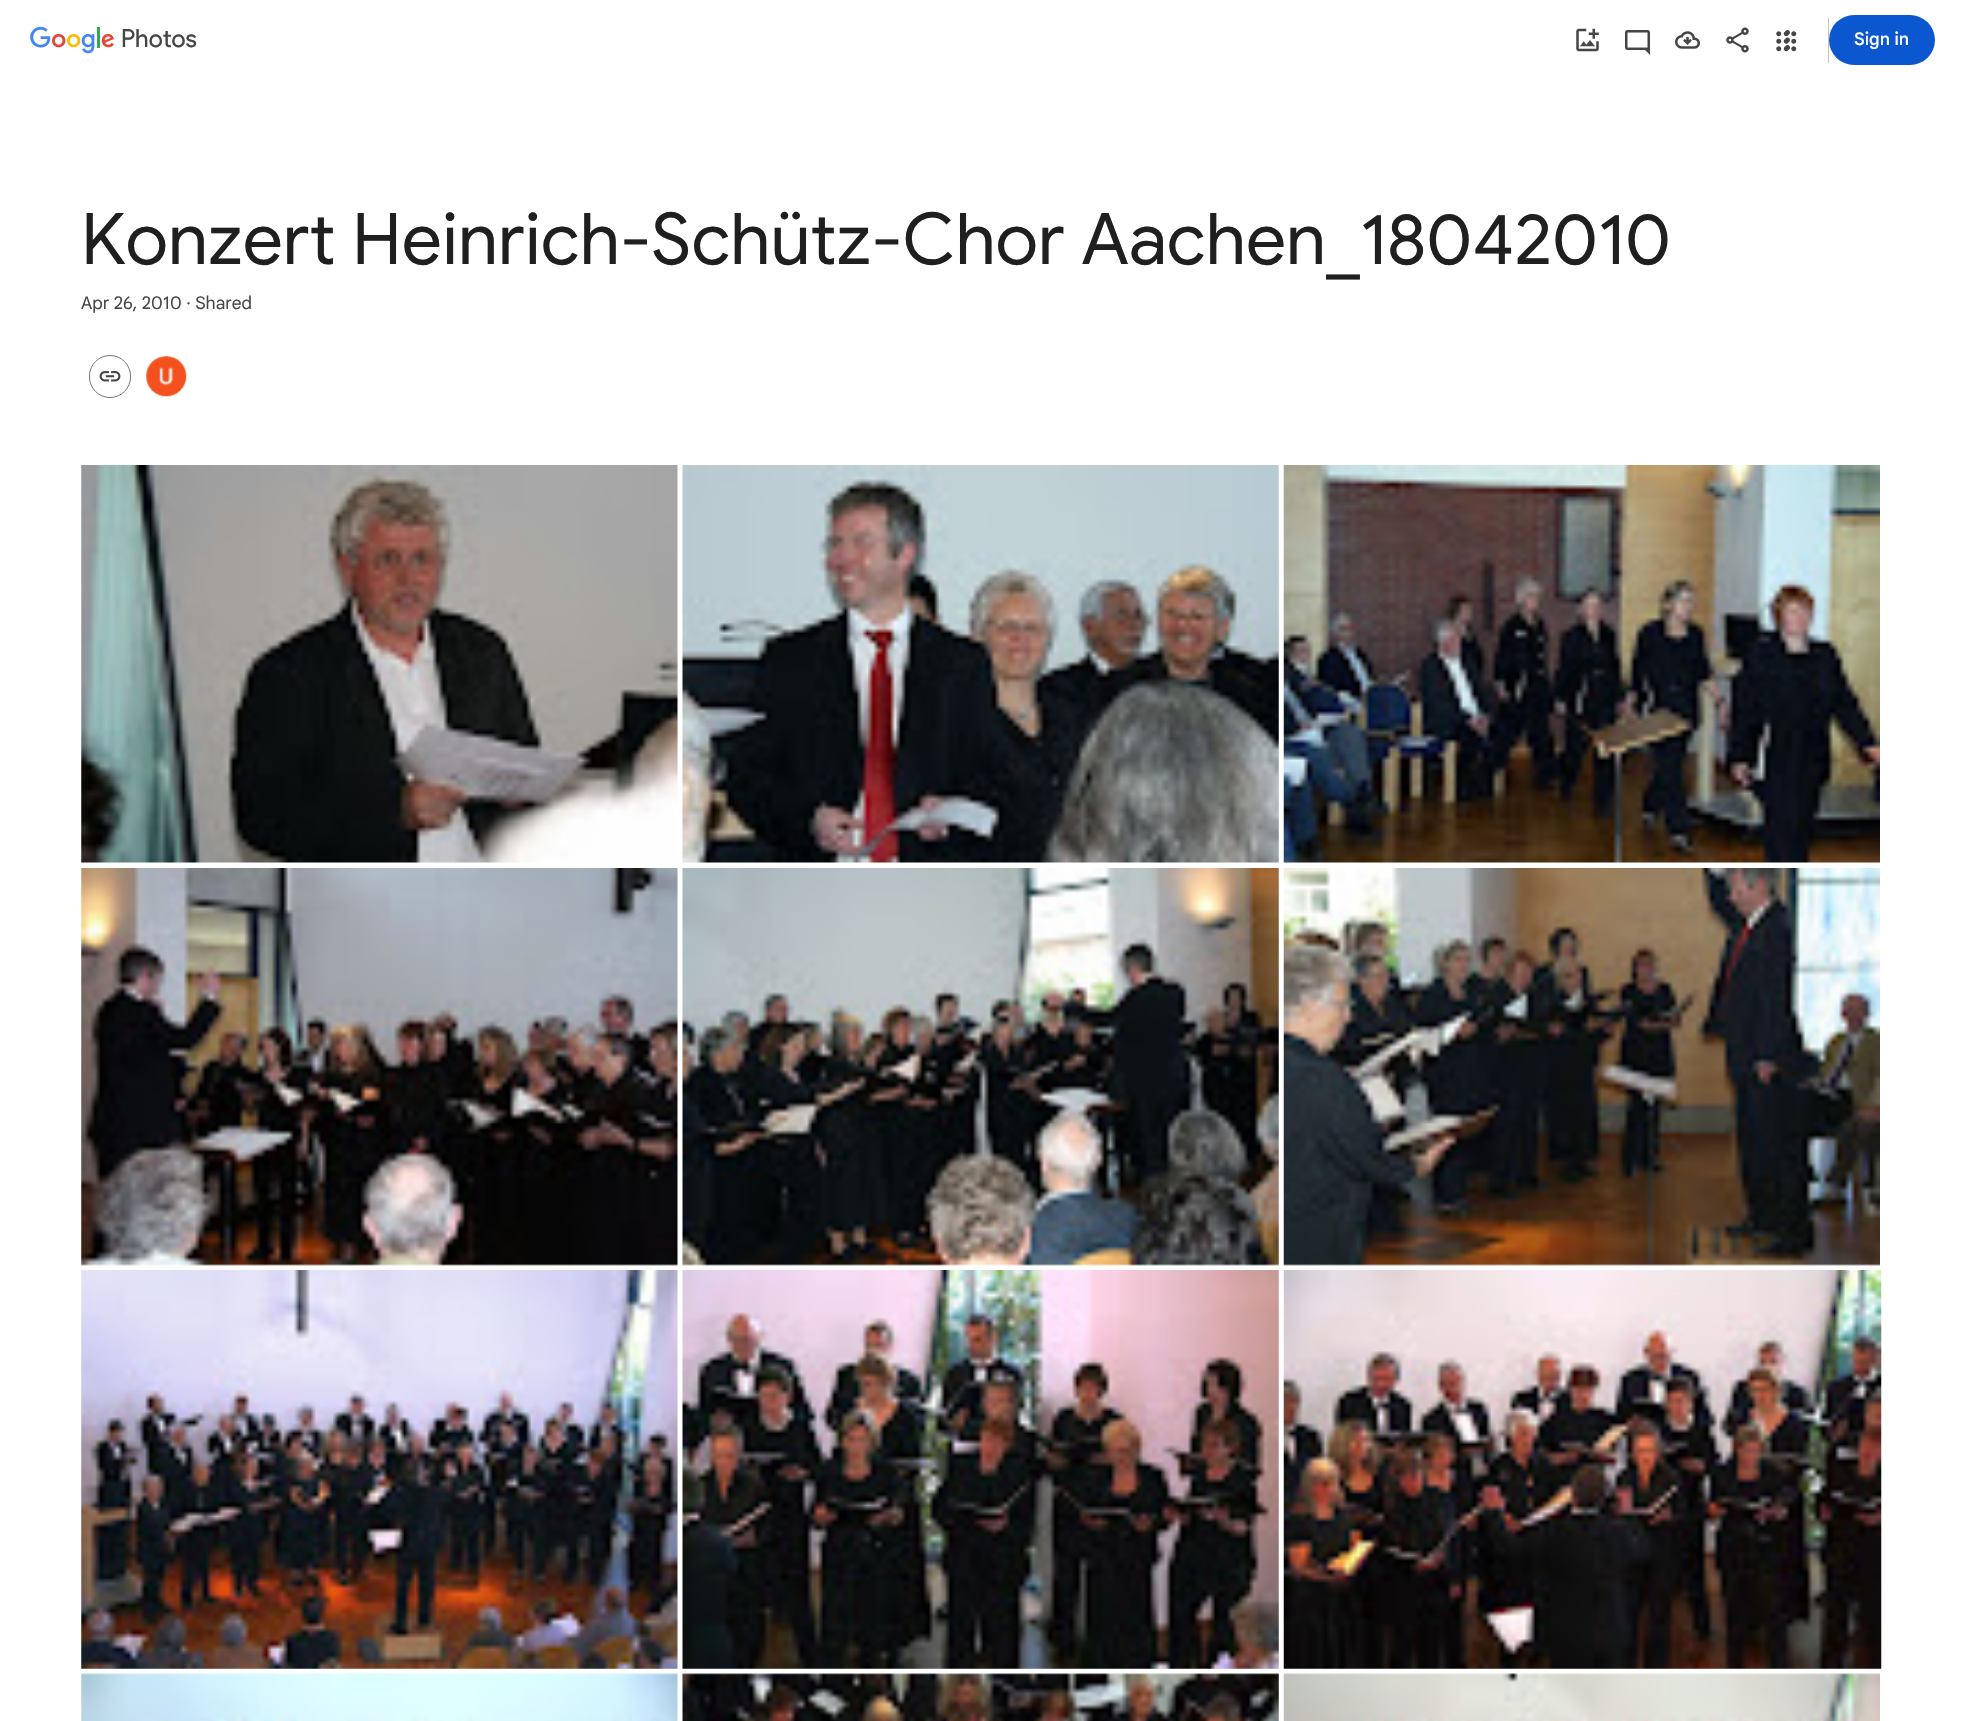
#include "include/core/SkBlurTypes.h"
#include "include/core/SkCanvas.h"
#include "include/core/SkData.h"
#include "include/core/SkFont.h"
#include "include/core/SkFontMgr.h"
#include "include/core/SkImage.h"
#include "include/core/SkMaskFilter.h"
#include "include/core/SkPaint.h"
#include "include/core/SkPathBuilder.h"
#include "include/core/SkTextBlob.h"
#include "include/effects/SkDashPathEffect.h"
#include "include/effects/SkGradientShader.h"
#include "include/utils/SkParsePath.h"

extern sk_sp<SkFontMgr> fontMgr;

void draw(SkCanvas* canvas) {
    SkPaint p;
    p.setAntiAlias(true);
    auto font = [&](const char* family, int weight, float size, bool italic = false) {
        SkFontStyle style(weight, SkFontStyle::kNormal_Width,
            italic ? SkFontStyle::kItalic_Slant : SkFontStyle::kUpright_Slant);
        SkFont result(fontMgr->matchFamilyStyle(family, style), size);
        result.setSubpixel(true);
        return result;
    };
    auto drawPhoto = [&](const char* path, float l, float t, float r, float b) {
        auto image = SkImages::DeferredFromEncodedData(SkData::MakeFromFileName(path));
        canvas->drawImageRect(image, SkRect::MakeLTRB(l, t, r, b), SkSamplingOptions());
    };
    canvas->clear(0xFFFFFFFF);
    drawPhoto("media/1.png", 30, 26, 114, 54);
    auto font1 = font("Product Sans", 400, 25);
    p.setColor(0xFF444746);
    canvas->drawString("Photos", 121, 47, font1, p);
    drawPhoto("media/2.png", 1576, 28, 1599, 52);
    drawPhoto("media/3.png", 1625, 30, 1650, 55);
    drawPhoto("media/4.png", 1675, 31, 1700, 49);
    drawPhoto("media/5.png", 1726, 27, 1749, 53);
    drawPhoto("media/6.png", 1785, 30, 1790, 50);
    p.setColor(0xFFC4C7C5);
    canvas->drawRect(SkRect::MakeLTRB(1828, 18, 1829, 63), p);
    auto font2 = font("Google Sans", 400, 71.25f);
    p.setColor(0xFF1F1F1F);
    canvas->drawString("Konzert Heinrich-Schütz-Chor Aachen_18042010", 81, 264, font2, p);
    auto font3 = font("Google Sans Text", 400, 17.5f);
    p.setColor(0xFF444746);
    canvas->drawString("Apr 26, 2010 · Shared", 81, 309, font3, p);
    p.setStyle(SkPaint::kStroke_Style);
    p.setStrokeWidth(1);
    p.setColor(0xFF747775);
    canvas->drawRoundRect(SkRect::MakeLTRB(89.5f, 355.5f, 130.5f, 397.5f), 20.5f, 20.5f, p);
    drawPhoto("media/7.png", 99, 371, 121, 382);
    drawPhoto("media/8.png", 146, 356, 187, 397);
    drawPhoto("media/9.png", 81, 465, 678, 863);
    drawPhoto("media/10.png", 682, 465, 1279, 863);
    drawPhoto("media/11.png", 1283, 465, 1880, 863);
    drawPhoto("media/12.png", 81, 868, 678, 1266);
    drawPhoto("media/13.png", 682, 868, 1279, 1266);
    drawPhoto("media/14.png", 1283, 868, 1880, 1266);
    drawPhoto("media/15.png", 81, 1270, 678, 1669);
    drawPhoto("media/16.png", 682, 1270, 1279, 1669);
    drawPhoto("media/17.png", 1283, 1270, 1882, 1669);
    drawPhoto("media/18.png", 81, 1673, 678, 1721);
    drawPhoto("media/19.png", 682, 1673, 1279, 1721);
    drawPhoto("media/20.png", 1283, 1673, 1880, 1721);
    drawPhoto("media/21.png", 1776, 31, 1797, 52);
    p.setStyle(SkPaint::kFill_Style);
    p.setColor(0xFF0B57D0);
    canvas->drawRoundRect(SkRect::MakeLTRB(1829, 15, 1935, 65), 25, 25, p);
    auto font4 = font("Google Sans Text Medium", 500, 17.5f);
    p.setColor(0xFFFFFFFF);
    canvas->drawString("Sign in", 1854, 45, font4, p);
}
